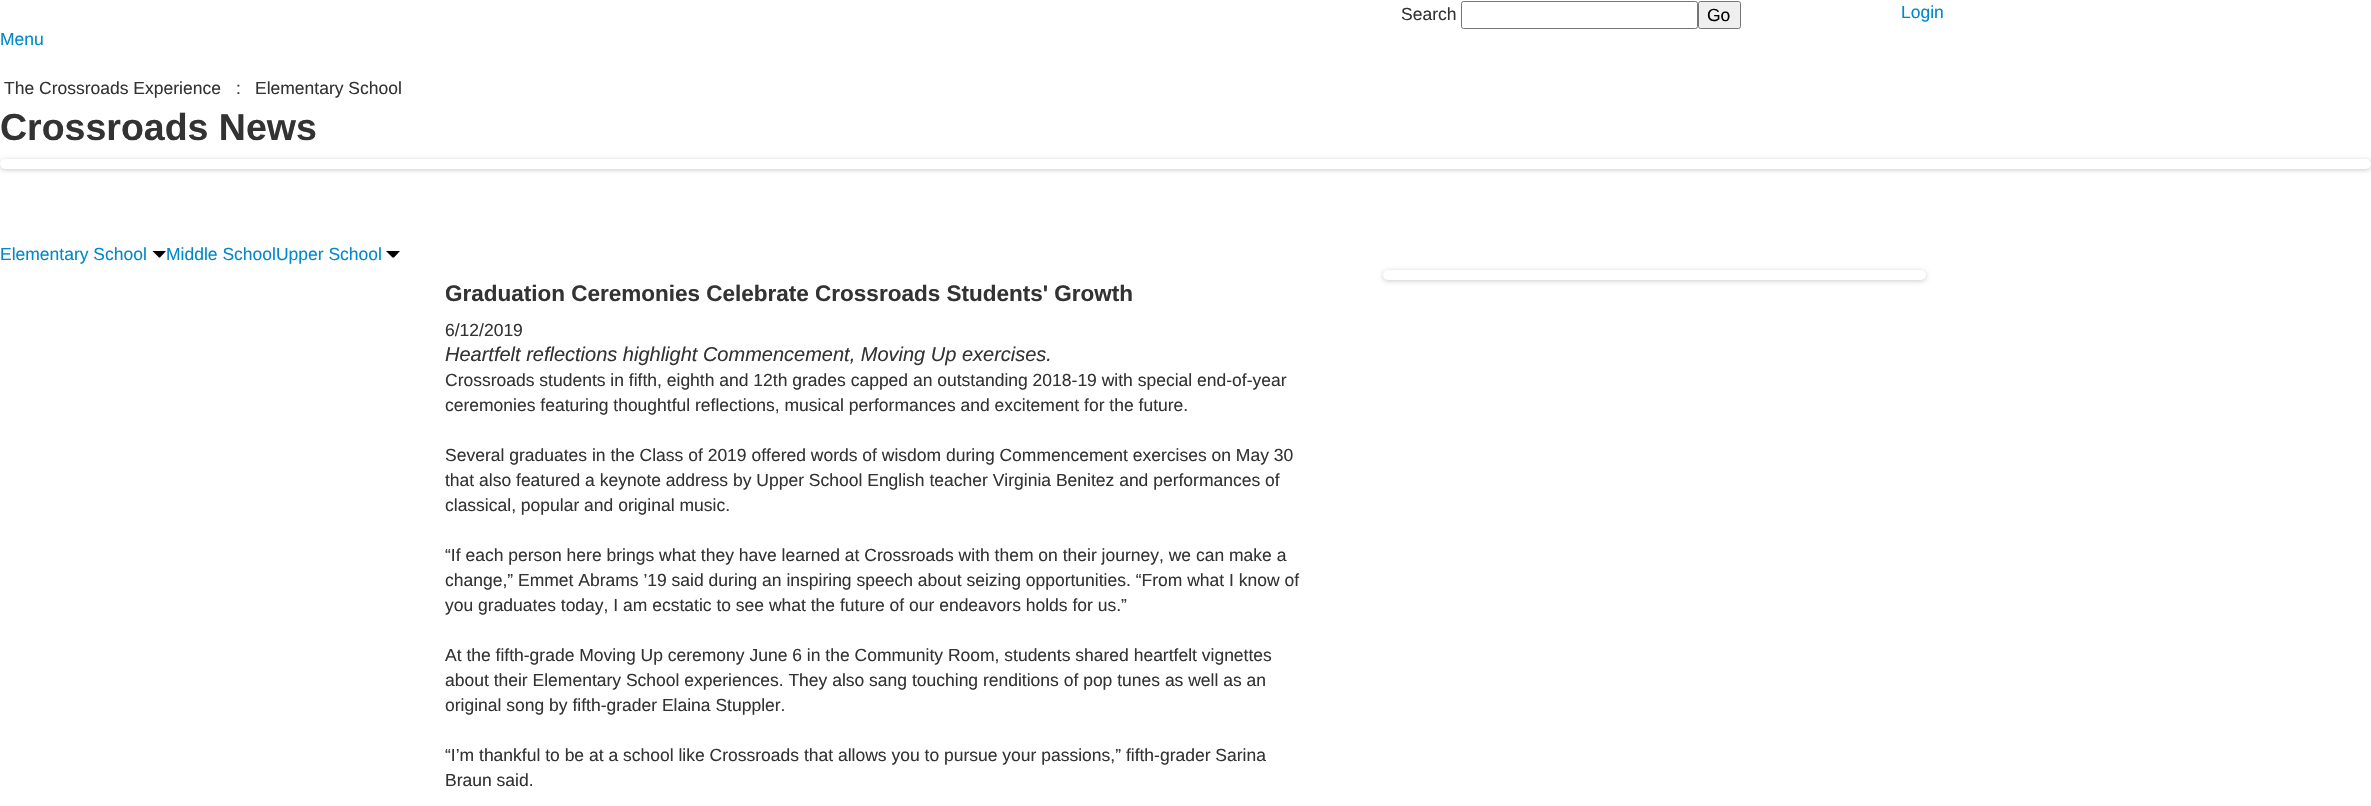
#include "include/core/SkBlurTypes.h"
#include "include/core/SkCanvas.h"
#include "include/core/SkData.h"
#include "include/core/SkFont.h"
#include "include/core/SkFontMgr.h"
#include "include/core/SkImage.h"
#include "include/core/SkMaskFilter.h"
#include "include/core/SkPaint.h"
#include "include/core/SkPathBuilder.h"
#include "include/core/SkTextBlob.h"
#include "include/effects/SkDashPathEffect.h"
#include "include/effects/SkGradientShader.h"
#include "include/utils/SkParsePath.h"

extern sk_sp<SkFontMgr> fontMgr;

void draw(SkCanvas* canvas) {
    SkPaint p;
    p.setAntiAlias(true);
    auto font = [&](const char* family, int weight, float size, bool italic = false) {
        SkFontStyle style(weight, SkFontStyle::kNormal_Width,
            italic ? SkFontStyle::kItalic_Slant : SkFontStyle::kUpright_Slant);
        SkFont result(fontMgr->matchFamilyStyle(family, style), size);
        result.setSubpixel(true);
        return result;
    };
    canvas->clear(0xFFFFFFFF);
    auto font1 = font("Liberation Sans", 400, 17.5f);
    p.setColor(0xFF333333);
    canvas->drawString("Search", 1401, 20, font1, p);
    p.setStyle(SkPaint::kStroke_Style);
    p.setStrokeWidth(1);
    p.setColor(0xFF767676);
    canvas->drawRoundRect(SkRect::MakeLTRB(1461.5f, 1.5f, 1697.5f, 28.5f), 2, 2, p);
    p.setStyle(SkPaint::kFill_Style);
    p.setColor(0xFFEFEFEF);
    canvas->drawRoundRect(SkRect::MakeLTRB(1698.5f, 1.5f, 1740.5f, 28.5f), 2, 2, p);
    p.setStyle(SkPaint::kStroke_Style);
    p.setColor(0xFF767676);
    canvas->drawRoundRect(SkRect::MakeLTRB(1698.5f, 1.5f, 1740.5f, 28.5f), 2, 2, p);
    p.setStyle(SkPaint::kFill_Style);
    p.setColor(0xFF000000);
    canvas->drawString("Go", 1707, 21, font1, p);
    p.setColor(0xFF0088CC);
    canvas->drawString("Login", 1901, 18, font1, p);
    canvas->drawString("Menu", 0, 45, font1, p);
    p.setColor(0xFF333333);
    {
        const struct { const char* s; float x, y; } items[] = {
            {"The Crossroads Experience", 4, 94},
            {":", 236, 94},
            {"Elementary School", 255, 94},
        };
        for (auto [s, x, y] : items) {
            canvas->drawString(s, x, y, font1, p);
        }
    }
    auto font2 = font("Liberation Sans", 700, 37.5f);
    canvas->drawString("Crossroads News", 0, 140, font2, p);
    p.setColor(0x33000000);
    p.setMaskFilter(SkMaskFilter::MakeBlur(kNormal_SkBlurStyle, 2.5f));
    canvas->drawRoundRect(SkRect::MakeLTRB(0, 160, 2371, 170), 5, 5, p);
    p.setMaskFilter(nullptr);
    p.setColor(0xFFFFFFFF);
    canvas->drawRoundRect(SkRect::MakeLTRB(0, 159, 2371, 169), 5, 5, p);
    p.setColor(0xFF0088CC);
    canvas->drawString("Elementary School", 0, 260, font1, p);
    p.setColor(0xFF000000);
    canvas->drawPath(SkPathBuilder().moveTo(152.5f, 251).lineTo(166, 251).lineTo(160, 257.5f).lineTo(159, 257.5f).close().detach(), p);
    p.setColor(0xFF0088CC);
    canvas->drawString("Middle SchoolUpper School", 166, 260, font1, p);
    p.setColor(0xFF000000);
    canvas->drawPath(SkPathBuilder().moveTo(386, 251).lineTo(400, 251).lineTo(394, 257.5f).lineTo(392.5f, 257.5f).close().detach(), p);
    p.setColor(0x33000000);
    p.setMaskFilter(SkMaskFilter::MakeBlur(kNormal_SkBlurStyle, 2.5f));
    canvas->drawRoundRect(SkRect::MakeLTRB(1383, 271, 1926, 281), 5, 5, p);
    p.setMaskFilter(nullptr);
    p.setColor(0xFFFFFFFF);
    canvas->drawRoundRect(SkRect::MakeLTRB(1383, 270, 1926, 280), 5, 5, p);
    auto font3 = font("Liberation Sans", 700, 22.5f);
    p.setColor(0xFF333333);
    canvas->drawString("Graduation Ceremonies Celebrate Crossroads Students' Growth", 445, 301, font3, p);
    canvas->drawString("6/12/2019", 445, 336, font1, p);
    auto font4 = font("Liberation Sans", 400, 20, true);
    canvas->drawString("Heartfelt reflections highlight Commencement, Moving Up exercises.", 445, 361, font4, p);
    {
        const struct { const char* s; float x, y; } items[] = {
            {"Crossroads students in fifth, eighth and 12th grades capped an outstanding 2018-19 with special end-of-year", 445, 386},
            {"ceremonies featuring thoughtful reflections, musical performances and excitement for the future.", 445, 411},
            {"Several graduates in the Class of 2019 offered words of wisdom during Commencement exercises on May 30", 445, 461},
            {"that also featured a keynote address by Upper School English teacher Virginia Benitez and performances of", 445, 486},
            {"classical, popular and original music.", 445, 511},
            {"“If each person here brings what they have learned at Crossroads with them on their journey, we can make a", 445, 561},
            {"change,” Emmet Abrams ’19 said during an inspiring speech about seizing opportunities. “From what I know of", 445, 586},
            {"you graduates today, I am ecstatic to see what the future of our endeavors holds for us.”", 445, 611},
            {"At the fifth-grade Moving Up ceremony June 6 in the Community Room, students shared heartfelt vignettes", 445, 661},
            {"about their Elementary School experiences. They also sang touching renditions of pop tunes as well as an", 445, 686},
            {"original song by fifth-grader Elaina Stuppler.", 445, 711},
            {"“I’m thankful to be at a school like Crossroads that allows you to pursue your passions,” fifth-grader Sarina", 445, 761},
            {"Braun said.", 445, 786},
        };
        for (auto [s, x, y] : items) {
            canvas->drawString(s, x, y, font1, p);
        }
    }
}
